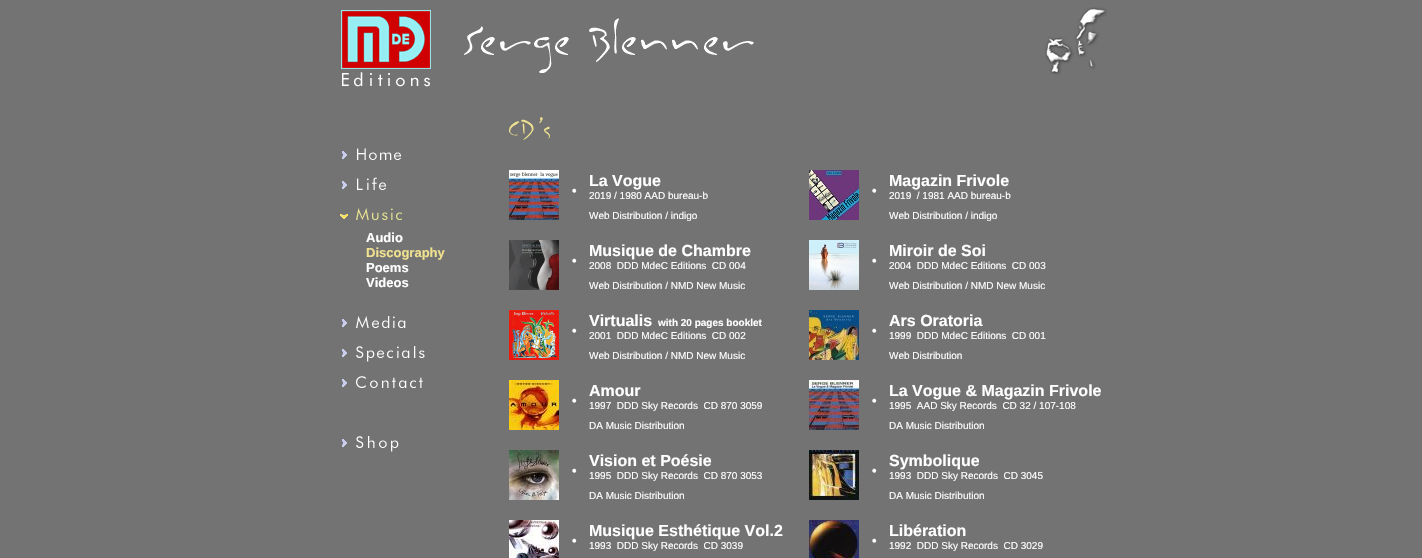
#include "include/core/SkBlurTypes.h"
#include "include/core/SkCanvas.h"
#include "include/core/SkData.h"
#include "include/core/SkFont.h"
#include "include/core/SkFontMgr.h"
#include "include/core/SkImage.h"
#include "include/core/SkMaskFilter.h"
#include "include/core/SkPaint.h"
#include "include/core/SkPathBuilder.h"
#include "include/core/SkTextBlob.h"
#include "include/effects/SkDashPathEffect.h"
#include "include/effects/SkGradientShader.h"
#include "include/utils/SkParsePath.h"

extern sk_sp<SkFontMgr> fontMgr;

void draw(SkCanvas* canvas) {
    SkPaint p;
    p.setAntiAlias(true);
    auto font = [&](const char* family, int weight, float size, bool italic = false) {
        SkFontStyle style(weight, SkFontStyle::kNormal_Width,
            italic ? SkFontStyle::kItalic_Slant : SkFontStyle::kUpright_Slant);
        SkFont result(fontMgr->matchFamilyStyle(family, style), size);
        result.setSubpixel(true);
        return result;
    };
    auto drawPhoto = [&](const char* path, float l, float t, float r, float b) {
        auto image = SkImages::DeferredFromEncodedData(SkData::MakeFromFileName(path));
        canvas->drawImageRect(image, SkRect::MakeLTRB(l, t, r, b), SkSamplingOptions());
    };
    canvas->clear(0xFF737373);
    drawPhoto("media/1.png", 341, 10, 431, 87);
    drawPhoto("media/2.png", 464, 18, 754, 73);
    drawPhoto("media/3.png", 1045, 7, 1107, 75);
    drawPhoto("media/4.png", 342, 148, 401, 160);
    drawPhoto("media/5.png", 342, 177, 386, 190);
    drawPhoto("media/6.png", 340, 208, 402, 220);
    auto font1 = font("Liberation Sans", 700, 13);
    p.setColor(0xFFFFFFFF);
    canvas->drawString("Audio", 366, 242, font1, p);
    p.setColor(0xFFF0E190);
    canvas->drawString("Discography", 366, 257, font1, p);
    p.setColor(0xFFFFFFFF);
    canvas->drawString("Poems", 366, 272, font1, p);
    canvas->drawString("Videos", 366, 287, font1, p);
    drawPhoto("media/7.png", 342, 316, 406, 328);
    drawPhoto("media/8.png", 342, 346, 425, 362);
    drawPhoto("media/9.png", 342, 376, 423, 388);
    drawPhoto("media/10.png", 342, 436, 399, 452);
    drawPhoto("media/11.png", 509, 117, 550, 140);
    drawPhoto("media/12.png", 509, 170, 559, 220);
    auto font2 = font("Liberation Sans", 700, 16);
    canvas->drawString("La Vogue", 589, 186, font2, p);
    drawPhoto("media/13.png", 809, 170, 859, 220);
    canvas->drawString("Magazin Frivole", 889, 186, font2, p);
    canvas->drawString("•", 572, 195, font1, p);
    canvas->drawString("•", 872, 195, font1, p);
    auto font3 = font("Liberation Sans", 400, 10);
    {
        const struct { const char* s; float x, y; } items[] = {
            {"2019 / 1980 AAD bureau-b", 589, 199},
            {"2019  / 1981 AAD bureau-b", 889, 199},
            {"Web Distribution / indigo", 589, 219},
            {"Web Distribution / indigo", 889, 219},
        };
        for (auto [s, x, y] : items) {
            canvas->drawString(s, x, y, font3, p);
        }
    }
    drawPhoto("media/14.png", 509, 240, 559, 290);
    canvas->drawString("Musique de Chambre", 589, 256, font2, p);
    drawPhoto("media/15.png", 809, 240, 859, 290);
    canvas->drawString("Miroir de Soi", 889, 256, font2, p);
    canvas->drawString("•", 572, 265, font1, p);
    canvas->drawString("•", 872, 265, font1, p);
    {
        const struct { const char* s; float x, y; } items[] = {
            {"2008  DDD MdeC Editions  CD 004", 589, 269},
            {"2004  DDD MdeC Editions  CD 003", 889, 269},
            {"Web Distribution / NMD New Music", 589, 289},
            {"Web Distribution / NMD New Music", 889, 289},
        };
        for (auto [s, x, y] : items) {
            canvas->drawString(s, x, y, font3, p);
        }
    }
    drawPhoto("media/16.png", 509, 310, 559, 360);
    canvas->drawString("Virtualis", 589, 326, font2, p);
    auto font4 = font("Liberation Sans", 700, 10);
    canvas->drawString("with 20 pages booklet", 658, 326, font4, p);
    drawPhoto("media/17.png", 809, 310, 859, 360);
    canvas->drawString("Ars Oratoria", 889, 326, font2, p);
    canvas->drawString("•", 572, 335, font1, p);
    canvas->drawString("•", 872, 335, font1, p);
    {
        const struct { const char* s; float x, y; } items[] = {
            {"2001  DDD MdeC Editions  CD 002", 589, 339},
            {"1999  DDD MdeC Editions  CD 001", 889, 339},
            {"Web Distribution / NMD New Music", 589, 359},
            {"Web Distribution", 889, 359},
        };
        for (auto [s, x, y] : items) {
            canvas->drawString(s, x, y, font3, p);
        }
    }
    drawPhoto("media/18.png", 509, 380, 559, 430);
    canvas->drawString("Amour", 589, 396, font2, p);
    drawPhoto("media/19.png", 809, 380, 859, 430);
    canvas->drawString("La Vogue & Magazin Frivole", 889, 396, font2, p);
    canvas->drawString("•", 572, 405, font1, p);
    canvas->drawString("•", 872, 405, font1, p);
    {
        const struct { const char* s; float x, y; } items[] = {
            {"1997  DDD Sky Records  CD 870 3059", 589, 409},
            {"1995  AAD Sky Records  CD 32 / 107-108", 889, 409},
            {"DA Music Distribution", 589, 429},
            {"DA Music Distribution", 889, 429},
        };
        for (auto [s, x, y] : items) {
            canvas->drawString(s, x, y, font3, p);
        }
    }
    drawPhoto("media/20.png", 509, 450, 559, 500);
    canvas->drawString("Vision et Poésie", 589, 466, font2, p);
    drawPhoto("media/21.png", 809, 450, 859, 500);
    canvas->drawString("Symbolique", 889, 466, font2, p);
    canvas->drawString("•", 572, 475, font1, p);
    canvas->drawString("•", 872, 475, font1, p);
    {
        const struct { const char* s; float x, y; } items[] = {
            {"1995  DDD Sky Records  CD 870 3053", 589, 479},
            {"1993  DDD Sky Records  CD 3045", 889, 479},
            {"DA Music Distribution", 589, 499},
            {"DA Music Distribution", 889, 499},
        };
        for (auto [s, x, y] : items) {
            canvas->drawString(s, x, y, font3, p);
        }
    }
    drawPhoto("media/22.png", 509, 520, 559, 558);
    canvas->drawString("Musique Esthétique Vol.2", 589, 536, font2, p);
    drawPhoto("media/23.png", 809, 520, 859, 558);
    canvas->drawString("Libération", 889, 536, font2, p);
    canvas->drawString("•", 572, 545, font1, p);
    canvas->drawString("•", 872, 545, font1, p);
    canvas->drawString("1993  DDD Sky Records  CD 3039", 589, 549, font3, p);
    canvas->drawString("1992  DDD Sky Records  CD 3029", 889, 549, font3, p);
}
